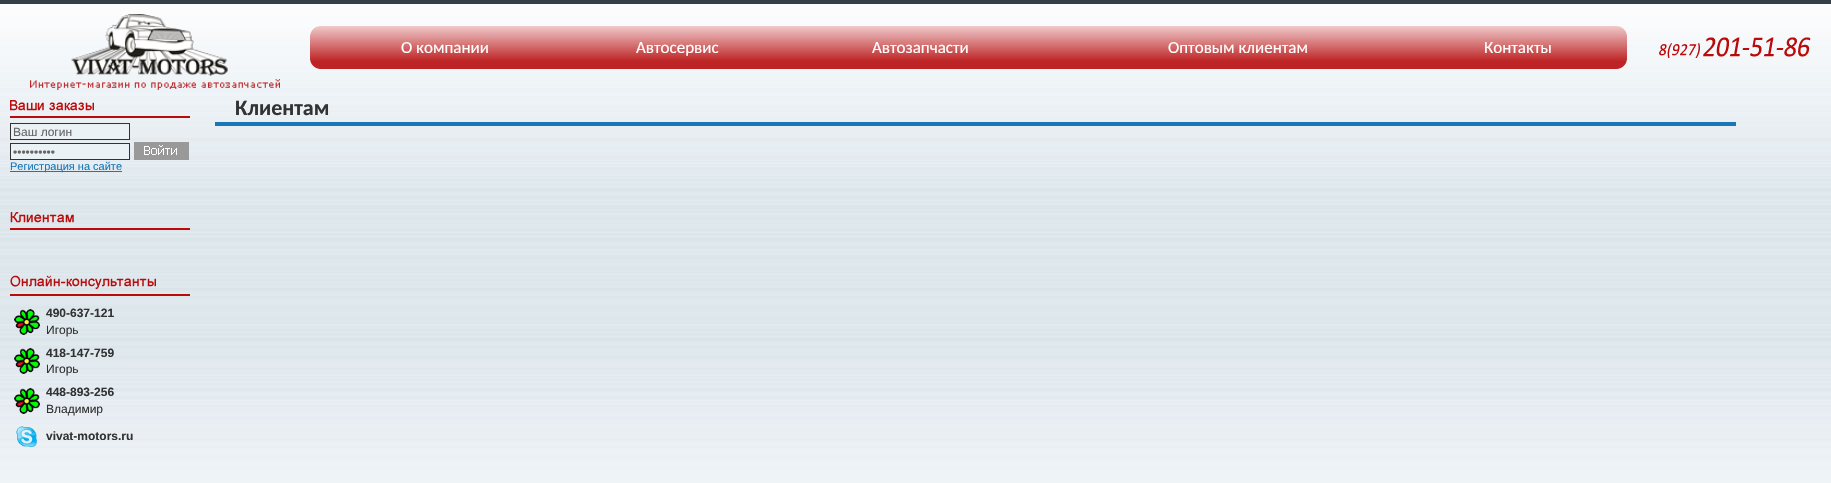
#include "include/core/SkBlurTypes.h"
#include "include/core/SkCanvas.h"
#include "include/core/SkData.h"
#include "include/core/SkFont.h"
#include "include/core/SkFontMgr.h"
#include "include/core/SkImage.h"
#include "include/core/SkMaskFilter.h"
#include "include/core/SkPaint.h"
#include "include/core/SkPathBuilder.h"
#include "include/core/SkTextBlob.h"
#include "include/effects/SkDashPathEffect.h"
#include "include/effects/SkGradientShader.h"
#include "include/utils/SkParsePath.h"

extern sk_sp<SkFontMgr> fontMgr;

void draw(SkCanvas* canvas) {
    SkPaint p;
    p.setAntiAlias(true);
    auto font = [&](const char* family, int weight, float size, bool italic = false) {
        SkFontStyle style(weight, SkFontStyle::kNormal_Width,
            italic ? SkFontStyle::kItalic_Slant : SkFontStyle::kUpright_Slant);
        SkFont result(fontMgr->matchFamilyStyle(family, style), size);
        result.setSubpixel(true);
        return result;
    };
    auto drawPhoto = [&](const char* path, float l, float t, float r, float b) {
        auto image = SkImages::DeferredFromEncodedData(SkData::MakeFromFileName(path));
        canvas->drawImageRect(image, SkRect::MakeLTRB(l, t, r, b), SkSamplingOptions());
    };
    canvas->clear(0xFFFFFFFF);
    drawPhoto("media/1.png", 0, 0, 1831, 483);
    drawPhoto("media/2.png", 30, 14, 280, 90);
    drawPhoto("media/3.png", 310, 26, 325, 69);
    drawPhoto("media/4.png", 325, 26, 1612, 69);
    auto font1 = font("Carlito", 400, 17);
    p.setColor(0xFFFFFFFF);
    {
        const struct { const char* s; float x, y; } items[] = {
            {"О компании", 401, 53},
            {"Автосервис", 636, 53},
            {"Автозапчасти", 872, 53},
            {"Оптовым клиентам", 1168, 53},
            {"Контакты", 1484, 53},
        };
        for (auto [s, x, y] : items) {
            canvas->drawString(s, x, y, font1, p);
        }
    }
    drawPhoto("media/5.png", 1612, 26, 1627, 69);
    drawPhoto("media/6.png", 1659, 37, 1811, 58);
    auto font2 = font("Carlito", 700, 22);
    p.setColor(0xFF333333);
    canvas->drawString("Клиентам", 235, 115, font2, p);
    p.setColor(0xFF1977B5);
    canvas->drawRect(SkRect::MakeLTRB(215, 122, 1736, 126), p);
    drawPhoto("media/7.png", 10, 100, 94, 111);
    p.setColor(0xFFBA0A0A);
    canvas->drawRect(SkRect::MakeLTRB(10, 116, 190, 118), p);
    p.setColor(0xFFEAF2F5);
    canvas->drawRect(SkRect::MakeLTRB(11, 126, 129, 139), p);
    p.setStyle(SkPaint::kStroke_Style);
    p.setStrokeWidth(1);
    p.setColor(0xFF333333);
    canvas->drawRect(SkRect::MakeLTRB(10.5f, 123.5f, 129.5f, 139.5f), p);
    auto font3 = font("Liberation Sans", 400, 12);
    p.setStyle(SkPaint::kFill_Style);
    p.setColor(0xFF666666);
    canvas->drawString("Ваш логин", 13, 136, font3, p);
    drawPhoto("media/8.png", 134, 142, 189, 160);
    p.setColor(0xFFEAF2F5);
    canvas->drawRect(SkRect::MakeLTRB(10.5f, 143.5f, 129.5f, 159.5f), p);
    p.setStyle(SkPaint::kStroke_Style);
    p.setColor(0xFF333333);
    canvas->drawRect(SkRect::MakeLTRB(10.5f, 143.5f, 129.5f, 159.5f), p);
    p.setStyle(SkPaint::kFill_Style);
    p.setColor(0xFF666666);
    canvas->drawString("••••••••••", 13, 156, font3, p);
    p.setColor(0xFF1977B5);
    canvas->drawRect(SkRect::MakeLTRB(10, 171, 122, 172), p);
    auto font4 = font("Liberation Sans", 400, 11);
    canvas->drawString("Регистрация на сайте", 10, 170, font4, p);
    drawPhoto("media/9.png", 10, 212, 74, 223);
    p.setColor(0xFFBA0A0A);
    canvas->drawRect(SkRect::MakeLTRB(10, 228, 190, 230), p);
    drawPhoto("media/10.png", 10, 275, 156, 289);
    canvas->drawRect(SkRect::MakeLTRB(10, 294, 190, 296), p);
    drawPhoto("media/11.png", 14, 309, 40, 335);
    auto font5 = font("Liberation Sans", 700, 12);
    p.setColor(0xFF333333);
    canvas->drawString("490-637-121", 46, 317, font5, p);
    canvas->drawString("Игорь", 46, 334, font3, p);
    drawPhoto("media/12.png", 14, 348, 40, 374);
    canvas->drawString("418-147-759", 46, 357, font5, p);
    canvas->drawString("Игорь", 46, 373, font3, p);
    drawPhoto("media/13.png", 14, 388, 40, 414);
    canvas->drawString("448-893-256", 46, 396, font5, p);
    canvas->drawString("Владимир", 46, 413, font3, p);
    drawPhoto("media/14.png", 16, 426, 37, 447);
    canvas->drawString("vivat-motors.ru", 46, 440, font5, p);
}
